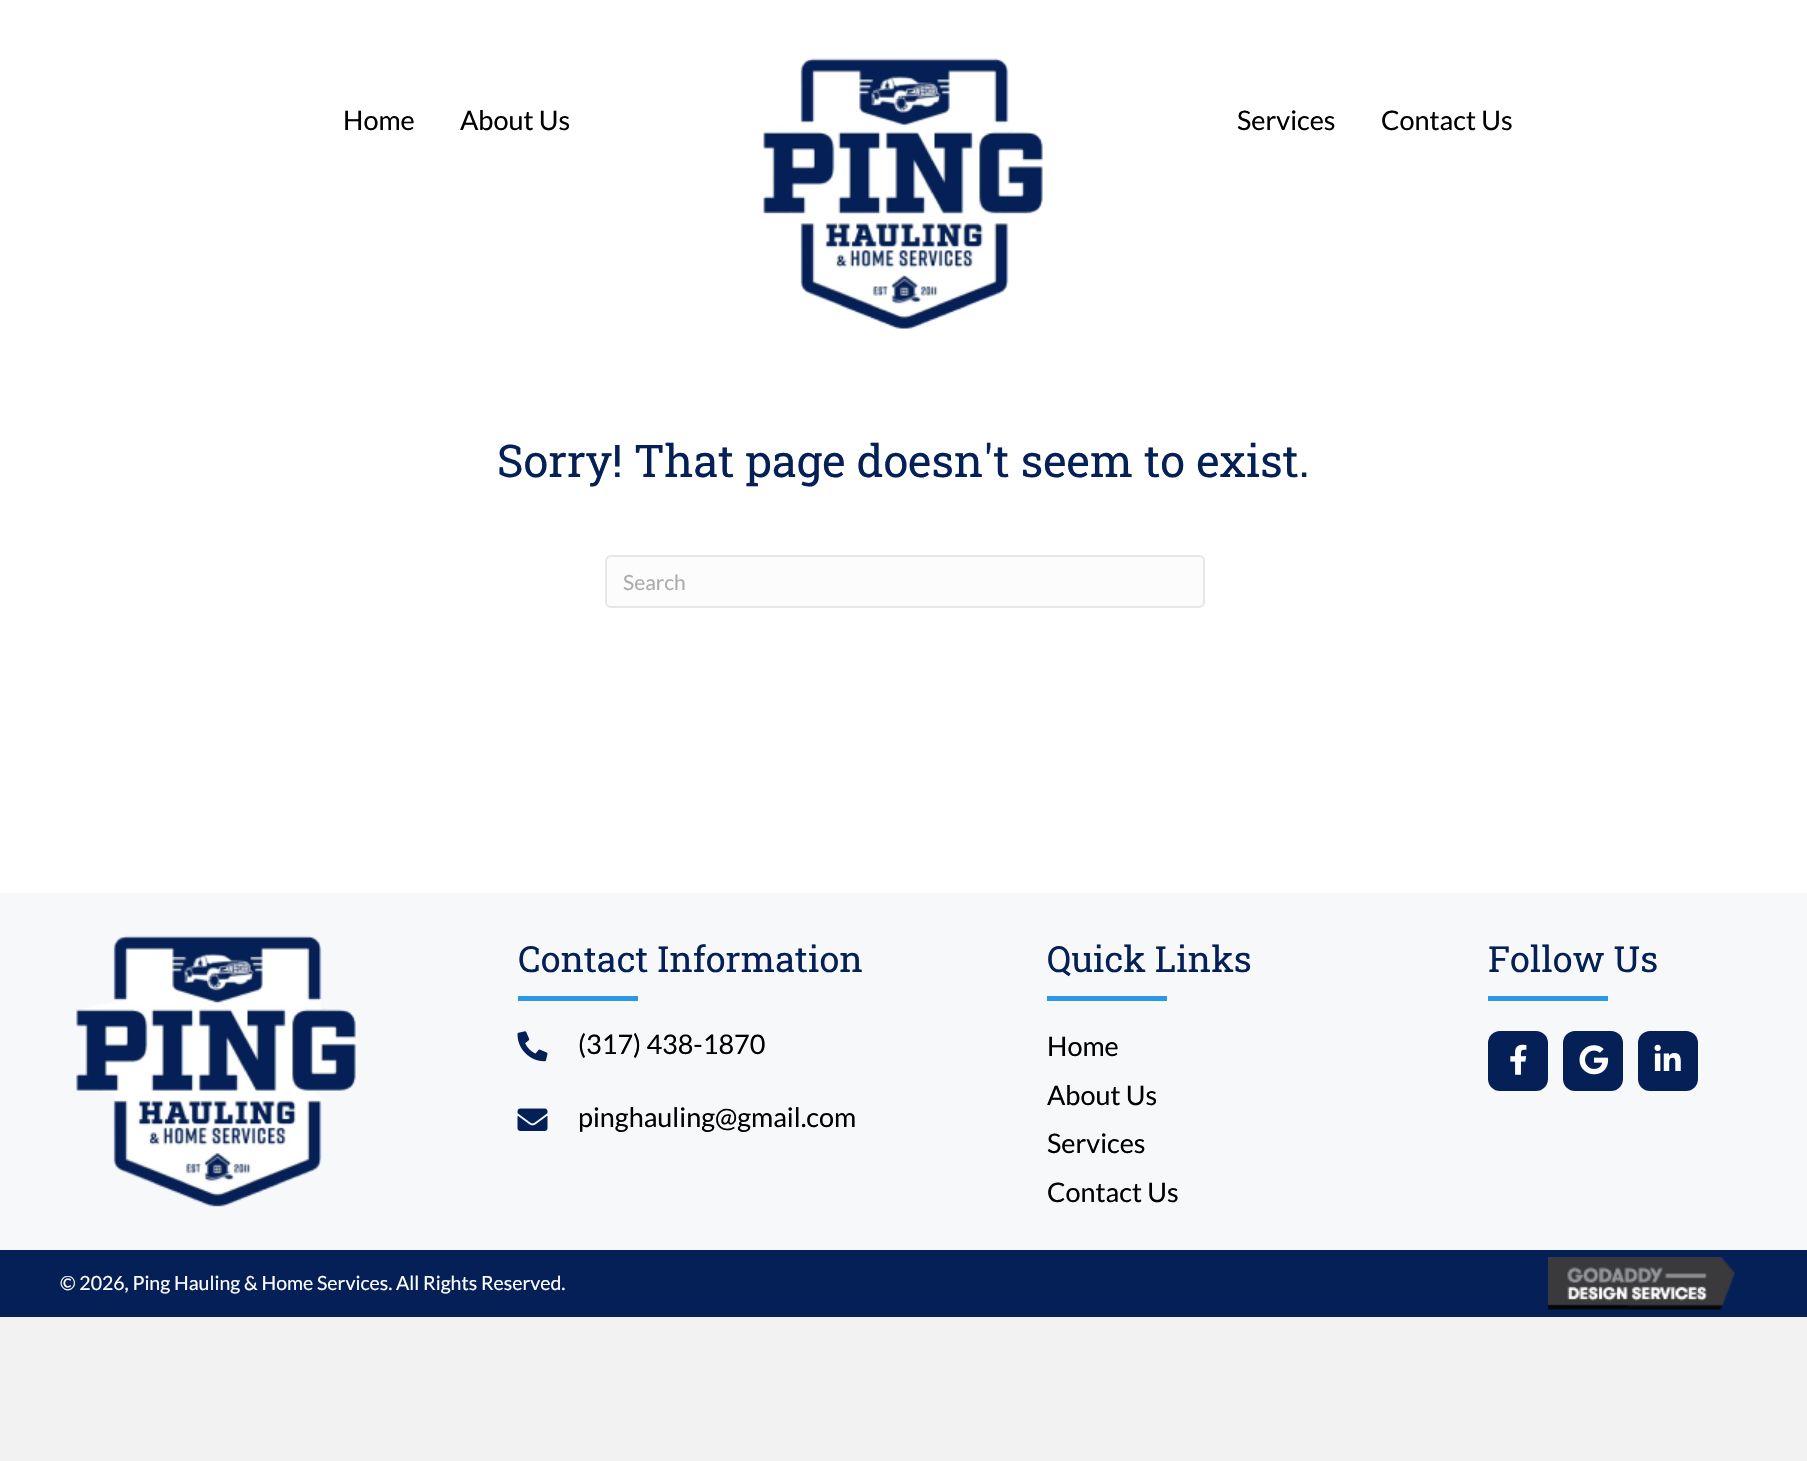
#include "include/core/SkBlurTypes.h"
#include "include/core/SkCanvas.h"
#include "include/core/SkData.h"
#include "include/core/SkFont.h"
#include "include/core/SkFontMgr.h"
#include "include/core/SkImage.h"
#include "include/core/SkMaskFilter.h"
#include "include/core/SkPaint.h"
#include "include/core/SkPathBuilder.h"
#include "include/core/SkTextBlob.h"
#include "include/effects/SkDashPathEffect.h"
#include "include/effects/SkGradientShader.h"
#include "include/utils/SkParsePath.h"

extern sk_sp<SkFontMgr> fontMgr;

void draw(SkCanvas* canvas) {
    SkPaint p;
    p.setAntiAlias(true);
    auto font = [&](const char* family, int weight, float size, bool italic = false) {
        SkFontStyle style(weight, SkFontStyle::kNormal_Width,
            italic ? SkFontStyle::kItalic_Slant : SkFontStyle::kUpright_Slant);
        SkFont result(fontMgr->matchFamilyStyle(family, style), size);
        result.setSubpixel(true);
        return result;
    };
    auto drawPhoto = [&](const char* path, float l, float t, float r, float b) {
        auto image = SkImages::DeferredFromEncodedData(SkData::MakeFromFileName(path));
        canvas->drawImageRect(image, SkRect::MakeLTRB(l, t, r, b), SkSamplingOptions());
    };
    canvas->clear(0xFFF2F2F2);
    p.setColor(0xFFFFFFFF);
    canvas->drawRect(SkRect::MakeLTRB(0, 0, 1807, 893), p);
    auto font1 = font("Lato", 400, 27);
    p.setColor(0xFF000000);
    canvas->drawString("Home", 343, 130, font1, p);
    canvas->drawString("About Us", 460, 130, font1, p);
    drawPhoto("media/1.png", 763, 58, 1043, 329);
    canvas->drawString("Services", 1237, 130, font1, p);
    canvas->drawString("Contact Us", 1381, 130, font1, p);
    auto font2 = font("Roboto Slab", 400, 45);
    p.setColor(0xFF052057);
    canvas->drawString("Sorry! That page doesn't seem to exist.", 497, 477, font2, p);
    p.setColor(0xFFFCFCFC);
    canvas->drawRoundRect(SkRect::MakeLTRB(606, 556, 1204, 607), 5, 5, p);
    p.setStyle(SkPaint::kStroke_Style);
    p.setStrokeWidth(2);
    p.setColor(0xFFE6E6E6);
    canvas->drawRoundRect(SkRect::MakeLTRB(606, 556, 1204, 607), 5, 5, p);
    auto font3 = font("Lato", 400, 21);
    p.setStyle(SkPaint::kFill_Style);
    p.setColor(0xFFACACAC);
    canvas->drawString("Search", 623, 590, font3, p);
    p.setColor(0xFFF7F8FA);
    canvas->drawRect(SkRect::MakeLTRB(0, 893, 1807, 1250), p);
    drawPhoto("media/2.png", 76, 935, 356, 1207);
    auto font4 = font("Roboto Slab", 400, 36);
    p.setColor(0xFF052057);
    canvas->drawString("Contact Information", 518, 972, font4, p);
    p.setColor(0xFF2A98E7);
    canvas->drawRect(SkRect::MakeLTRB(518, 996, 638, 1001), p);
    drawPhoto("media/3.png", 517, 1031, 548, 1062);
    p.setColor(0xFF000000);
    canvas->drawString("(317) 438-1870", 578, 1054, font1, p);
    drawPhoto("media/4.png", 517, 1108, 548, 1131);
    canvas->drawString("pinghauling@gmail.com", 578, 1127, font1, p);
    p.setColor(0xFF052057);
    canvas->drawString("Quick Links", 1047, 972, font4, p);
    p.setColor(0xFF2A98E7);
    canvas->drawRect(SkRect::MakeLTRB(1047, 996, 1167, 1001), p);
    p.setColor(0xFF000000);
    {
        const struct { const char* s; float x, y; } items[] = {
            {"Home", 1047, 1056},
            {"About Us", 1047, 1105},
            {"Services", 1047, 1153},
            {"Contact Us", 1047, 1202},
        };
        for (auto [s, x, y] : items) {
            canvas->drawString(s, x, y, font1, p);
        }
    }
    p.setColor(0xFF052057);
    canvas->drawString("Follow Us", 1488, 972, font4, p);
    p.setColor(0xFF2A98E7);
    canvas->drawRect(SkRect::MakeLTRB(1488, 996, 1608, 1001), p);
    p.setColor(0xFF052057);
    canvas->drawRoundRect(SkRect::MakeLTRB(1488, 1031, 1548, 1091), 12, 12, p);
    drawPhoto("media/5.png", 1510, 1044, 1527, 1075);
    canvas->drawRoundRect(SkRect::MakeLTRB(1563, 1031, 1623, 1091), 12, 12, p);
    drawPhoto("media/6.png", 1579, 1045, 1609, 1075);
    canvas->drawRoundRect(SkRect::MakeLTRB(1638, 1031, 1698, 1091), 12, 12, p);
    drawPhoto("media/7.png", 1654, 1044, 1681, 1071);
    canvas->drawRect(SkRect::MakeLTRB(0, 1250, 1807, 1317), p);
    auto font5 = font("Lato", 400, 19.5f);
    p.setColor(0xFFFFFFFF);
    canvas->drawString("© 2026, Ping Hauling & Home Services. All Rights Reserved.", 60, 1290, font5, p);
    drawPhoto("media/8.png", 1548, 1257, 1736, 1310);
}
